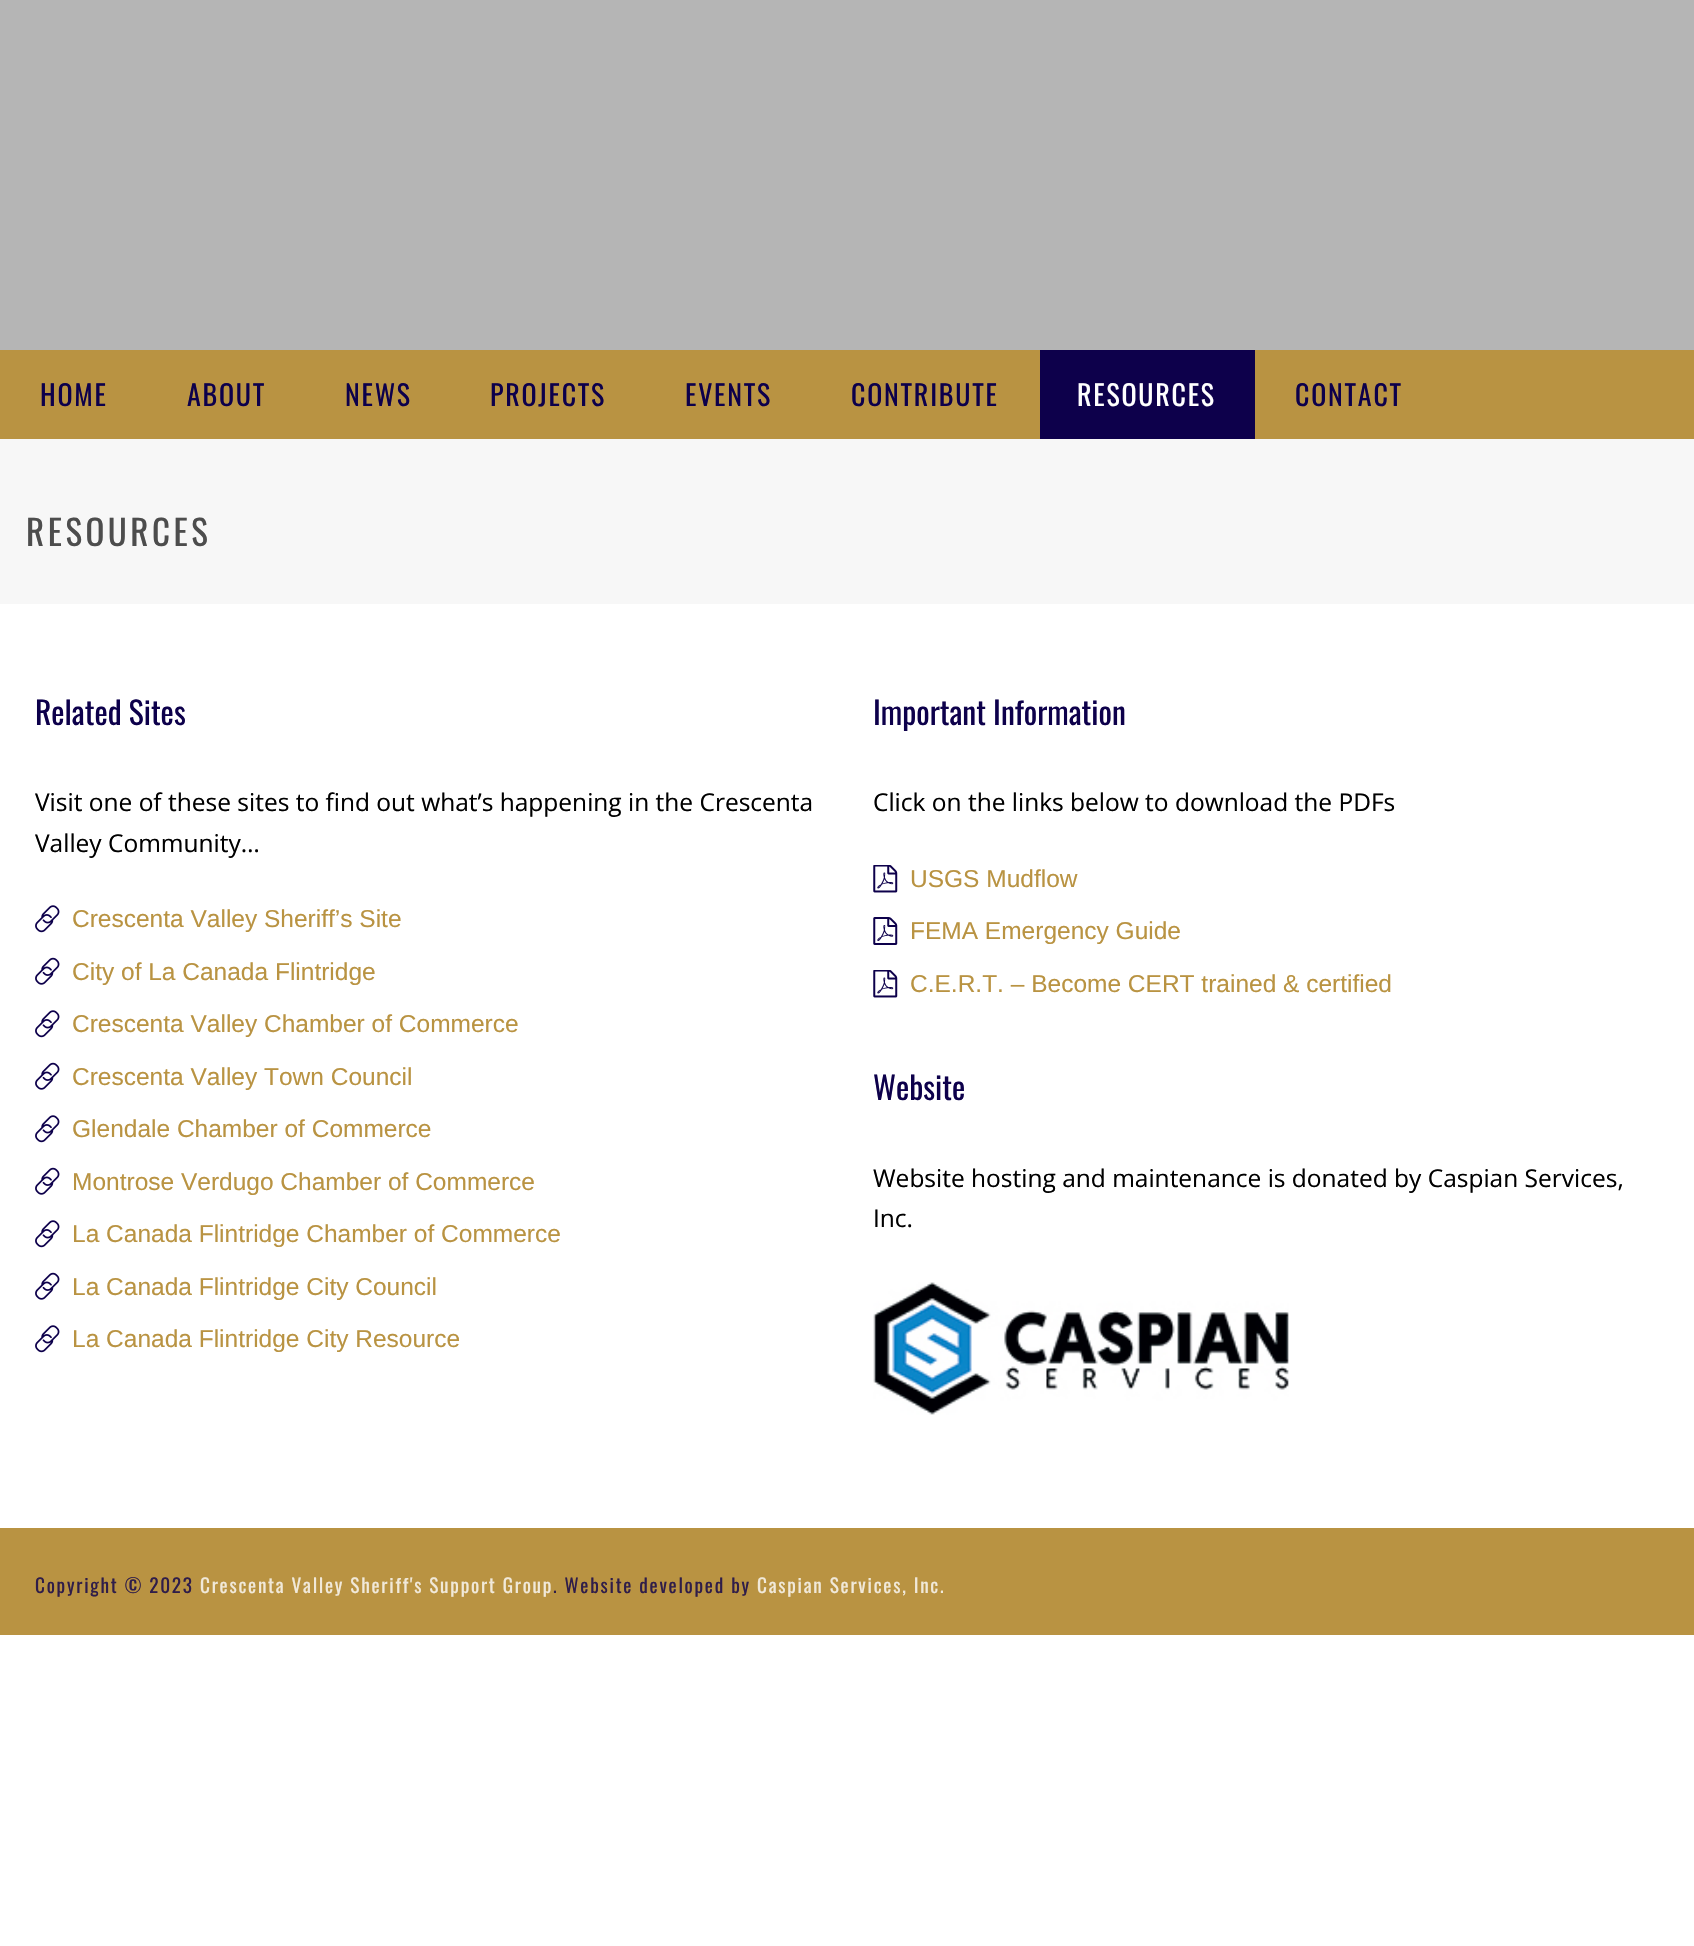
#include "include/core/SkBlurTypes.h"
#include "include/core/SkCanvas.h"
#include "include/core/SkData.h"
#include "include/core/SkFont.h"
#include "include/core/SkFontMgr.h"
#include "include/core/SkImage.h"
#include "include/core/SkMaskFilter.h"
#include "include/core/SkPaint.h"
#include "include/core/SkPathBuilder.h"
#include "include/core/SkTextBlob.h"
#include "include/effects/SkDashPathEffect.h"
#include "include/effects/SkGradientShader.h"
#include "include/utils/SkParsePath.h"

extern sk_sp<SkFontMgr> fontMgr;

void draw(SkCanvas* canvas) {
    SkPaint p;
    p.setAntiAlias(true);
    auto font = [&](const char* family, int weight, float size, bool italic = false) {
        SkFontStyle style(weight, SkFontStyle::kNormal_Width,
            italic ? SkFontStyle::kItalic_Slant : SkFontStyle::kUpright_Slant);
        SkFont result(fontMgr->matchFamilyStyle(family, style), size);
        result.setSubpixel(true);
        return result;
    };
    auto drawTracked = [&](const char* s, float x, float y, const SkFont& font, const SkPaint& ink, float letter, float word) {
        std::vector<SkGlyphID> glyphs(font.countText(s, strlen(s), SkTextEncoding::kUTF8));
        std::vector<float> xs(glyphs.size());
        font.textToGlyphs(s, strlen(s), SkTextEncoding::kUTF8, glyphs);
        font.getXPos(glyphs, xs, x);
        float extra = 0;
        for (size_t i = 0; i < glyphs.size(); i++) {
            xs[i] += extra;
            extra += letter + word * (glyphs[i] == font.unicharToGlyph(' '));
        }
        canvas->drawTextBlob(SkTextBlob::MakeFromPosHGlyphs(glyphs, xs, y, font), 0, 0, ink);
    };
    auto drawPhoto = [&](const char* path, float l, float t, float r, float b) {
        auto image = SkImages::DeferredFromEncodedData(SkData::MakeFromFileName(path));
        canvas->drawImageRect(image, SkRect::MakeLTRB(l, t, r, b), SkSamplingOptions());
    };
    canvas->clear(0xFFFFFFFF);
    {
        const struct { float l, t, r, b; SkColor color; } items[] = {
            {0, 439, 1694, 604, 0xFFF7F7F7},
            {0, 0, 1694, 350, 0xFFB5B5B5},
            {0, 350, 1694, 439, 0xFFB99342},
        };
        for (auto [l, t, r, b, color] : items) {
            p.setColor(color);
            canvas->drawRect(SkRect::MakeLTRB(l, t, r, b), p);
        }
    }
    auto font1 = font("Oswald", 400, 28);
    p.setColor(0xFF0D004B);
    {
        const struct { const char* s; float x, y; } items[] = {
            {"HOME", 40, 406},
            {"ABOUT", 187, 406},
            {"NEWS", 345, 406},
            {"PROJECTS", 490, 406},
            {"EVENTS", 685, 406},
            {"CONTRIBUTE", 851, 406},
        };
        for (auto [s, x, y] : items) {
            drawTracked(s, x, y, font1, p, 1.75f, 0);
        }
    }
    canvas->drawRect(SkRect::MakeLTRB(1040, 350, 1255, 439), p);
    p.setColor(0xFFFFFFFF);
    drawTracked("RESOURCES", 1077, 406, font1, p, 1.75f, 0);
    p.setColor(0xFF0D004B);
    drawTracked("CONTACT", 1295, 406, font1, p, 1.75f, 0);
    auto font2 = font("Oswald", 400, 35);
    p.setColor(0xFF4D4D4D);
    drawTracked("RESOURCES", 26, 546, font2, p, 3.5f, 0);
    auto font3 = font("Oswald", 400, 31.5f);
    p.setColor(0xFF0D004B);
    canvas->drawString("Related Sites", 35, 725, font3, p);
    auto font4 = font("Open Sans", 400, 24.5f);
    p.setColor(0xFF000000);
    canvas->drawString("Visit one of these sites to find out what’s happening in the Crescenta", 35, 811, font4, p);
    canvas->drawString("Valley Community…", 35, 852, font4, p);
    drawPhoto("media/1.png", 35, 905, 60, 933);
    auto font5 = font("Liberation Sans", 400, 24.5f);
    p.setColor(0xFFB99342);
    canvas->drawString("Crescenta Valley Sheriff’s Site", 72, 927, font5, p);
    drawPhoto("media/2.png", 35, 957, 60, 985);
    canvas->drawString("City of La Canada Flintridge", 72, 980, font5, p);
    drawPhoto("media/1.png", 35, 1010, 60, 1038);
    canvas->drawString("Crescenta Valley Chamber of Commerce", 72, 1032, font5, p);
    drawPhoto("media/2.png", 35, 1062, 60, 1090);
    canvas->drawString("Crescenta Valley Town Council", 72, 1085, font5, p);
    drawPhoto("media/1.png", 35, 1115, 60, 1143);
    canvas->drawString("Glendale Chamber of Commerce", 72, 1137, font5, p);
    drawPhoto("media/2.png", 35, 1167, 60, 1195);
    canvas->drawString("Montrose Verdugo Chamber of Commerce", 72, 1190, font5, p);
    drawPhoto("media/1.png", 35, 1220, 60, 1248);
    canvas->drawString("La Canada Flintridge Chamber of Commerce", 72, 1242, font5, p);
    drawPhoto("media/2.png", 35, 1272, 60, 1300);
    canvas->drawString("La Canada Flintridge City Council", 72, 1295, font5, p);
    drawPhoto("media/1.png", 35, 1325, 60, 1353);
    canvas->drawString("La Canada Flintridge City Resource", 72, 1347, font5, p);
    p.setColor(0xFF0D004B);
    canvas->drawString("Important Information", 873, 725, font3, p);
    p.setColor(0xFF000000);
    canvas->drawString("Click on the links below to download the PDFs", 873, 811, font4, p);
    drawPhoto("media/3.png", 873, 865, 898, 893);
    p.setColor(0xFFB99342);
    canvas->drawString("USGS Mudflow", 910, 887, font5, p);
    drawPhoto("media/4.png", 873, 917, 898, 945);
    canvas->drawString("FEMA Emergency Guide", 910, 939, font5, p);
    drawPhoto("media/3.png", 873, 970, 898, 998);
    canvas->drawString("C.E.R.T. – Become CERT trained & certified", 910, 992, font5, p);
    p.setColor(0xFF0D004B);
    canvas->drawString("Website", 873, 1100, font3, p);
    p.setColor(0xFF000000);
    canvas->drawString("Website hosting and maintenance is donated by Caspian Services,", 873, 1187, font4, p);
    canvas->drawString("Inc.", 873, 1227, font4, p);
    drawPhoto("media/5.png", 873, 1282, 1289, 1415);
    p.setColor(0xFFB99342);
    canvas->drawRect(SkRect::MakeLTRB(0, 1528, 1694, 1635), p);
    auto font6 = font("Oswald", 400, 19.25f);
    p.setColor(0xFF2F1D49);
    drawTracked("Copyright © 2023", 35, 1593, font6, p, 1.75f, 0);
    p.setColor(0xFFF1E9D9);
    drawTracked("Crescenta Valley Sheriff's Support Group", 200, 1593, font6, p, 1.75f, 0);
    p.setColor(0xFF2F1D49);
    drawTracked(". Website developed by", 553, 1593, font6, p, 1.75f, 0);
    p.setColor(0xFFF1E9D9);
    drawTracked("Caspian Services, Inc.", 757, 1593, font6, p, 1.75f, 0);
}
